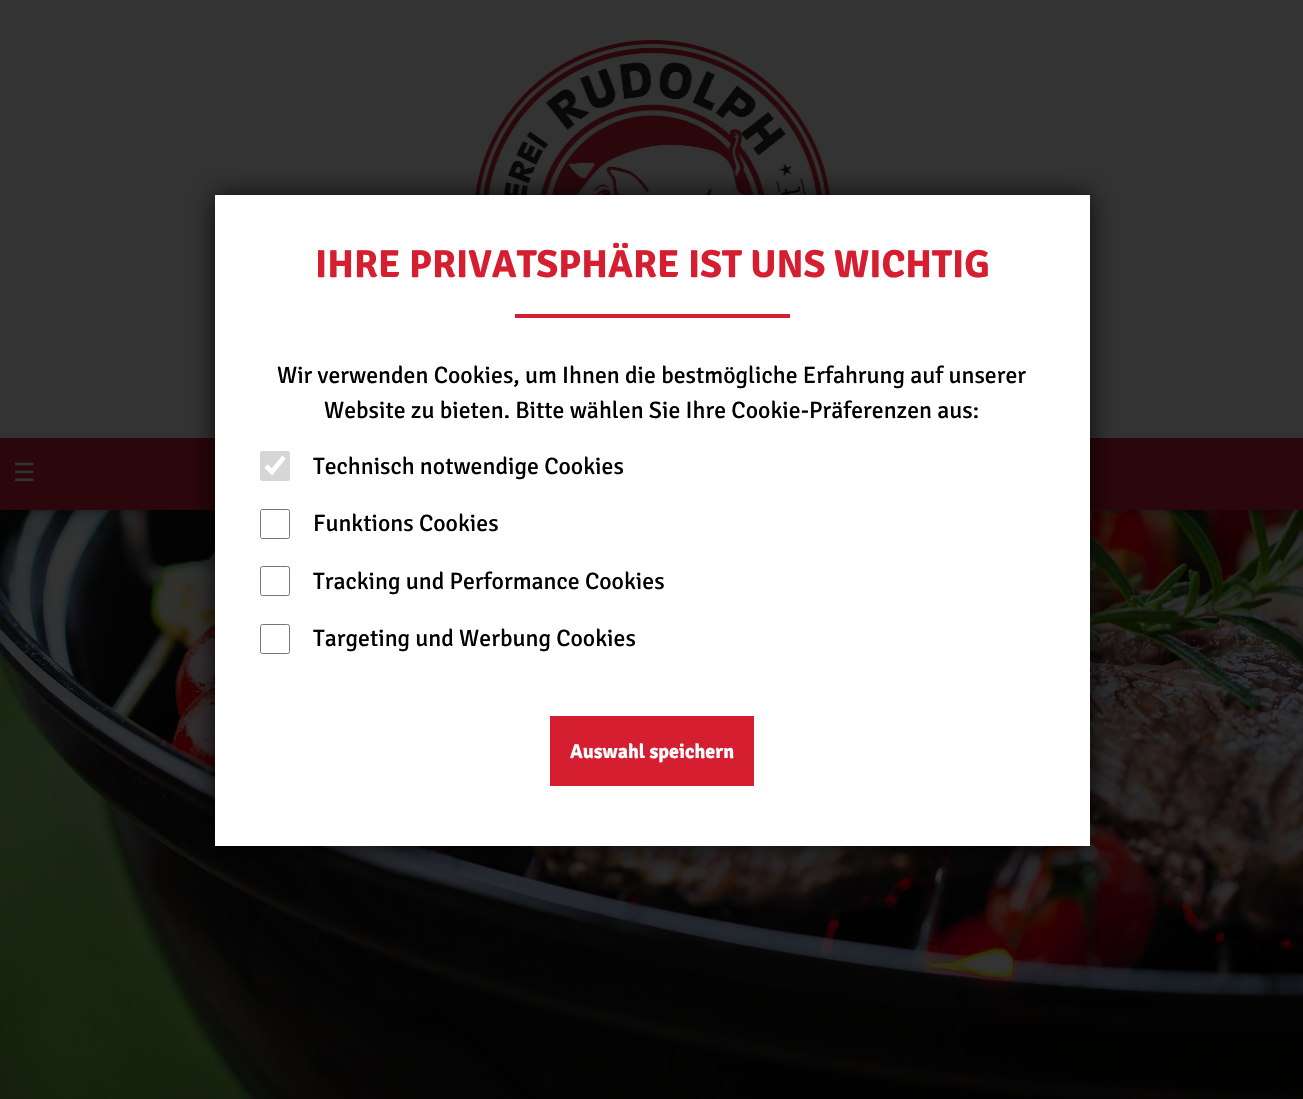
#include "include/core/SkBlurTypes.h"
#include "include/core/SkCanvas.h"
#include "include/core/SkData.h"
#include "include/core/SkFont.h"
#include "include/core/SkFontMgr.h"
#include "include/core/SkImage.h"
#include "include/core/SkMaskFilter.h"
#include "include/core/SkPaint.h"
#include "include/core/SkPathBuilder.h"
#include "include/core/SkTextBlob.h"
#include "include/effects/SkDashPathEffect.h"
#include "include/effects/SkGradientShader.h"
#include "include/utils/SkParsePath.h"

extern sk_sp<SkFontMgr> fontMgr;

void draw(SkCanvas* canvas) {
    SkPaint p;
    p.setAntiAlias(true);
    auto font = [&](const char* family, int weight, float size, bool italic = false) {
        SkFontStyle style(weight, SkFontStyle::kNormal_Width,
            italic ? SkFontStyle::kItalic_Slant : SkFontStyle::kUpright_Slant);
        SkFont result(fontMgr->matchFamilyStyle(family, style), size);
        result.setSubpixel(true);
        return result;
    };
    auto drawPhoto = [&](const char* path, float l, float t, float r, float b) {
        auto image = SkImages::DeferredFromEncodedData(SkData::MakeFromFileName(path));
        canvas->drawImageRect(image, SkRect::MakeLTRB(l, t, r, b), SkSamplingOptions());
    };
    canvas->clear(0xFFFFFFFF);
    drawPhoto("media/1.png", 0, 510, 1303, 1099);
    p.setColor(0x80000000);
    p.setMaskFilter(SkMaskFilter::MakeBlur(kNormal_SkBlurStyle, 6));
    canvas->drawRect(SkRect::MakeLTRB(0, 0, 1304, 510), p);
    p.setMaskFilter(nullptr);
    p.setColor(0xFF333333);
    canvas->drawRect(SkRect::MakeLTRB(0, 0, 1303, 438), p);
    drawPhoto("media/2.png", 474, 40, 830, 195);
    p.setColor(0xFF2B060A);
    canvas->drawRect(SkRect::MakeLTRB(0, 438, 1303, 510), p);
    auto font1 = font("DejaVu Sans", 400, 25);
    p.setColor(0xFF333333);
    canvas->drawString("☰", 13, 481, font1, p);
    p.setColor(0xCC000000);
    p.setMaskFilter(SkMaskFilter::MakeBlur(kNormal_SkBlurStyle, 12.5f));
    canvas->drawRect(SkRect::MakeLTRB(215, 195, 1090, 846), p);
    p.setMaskFilter(nullptr);
    p.setColor(0xFFFFFFFF);
    canvas->drawRect(SkRect::MakeLTRB(215, 195, 1090, 846), p);
    auto font2 = font("Signika", 300, 39);
    p.setColor(0xFFD51E30);
    canvas->drawString("IHRE PRIVATSPHÄRE IST UNS WICHTIG", 315, 277, font2, p);
    canvas->drawRect(SkRect::MakeLTRB(515, 314, 790, 318), p);
    auto font3 = font("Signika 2", 300, 23.75f);
    p.setColor(0xFF000000);
    canvas->drawString("Wir verwenden Cookies, um Ihnen die bestmögliche Erfahrung auf unserer", 277, 383, font3, p);
    canvas->drawString("Website zu bieten. Bitte wählen Sie Ihre Cookie-Präferenzen aus:", 324, 418, font3, p);
    p.setColor(0xFFD6D6D6);
    canvas->drawRoundRect(SkRect::MakeLTRB(260, 451, 290, 481), 2.5f, 2.5f, p);
    p.setStyle(SkPaint::kStroke_Style);
    p.setStrokeWidth(4.8f);
    p.setColor(0xFFFFFFFF);
    canvas->drawPath(SkPathBuilder().moveTo(266, 466).lineTo(272, 472).lineTo(284, 457).detach(), p);
    p.setStyle(SkPaint::kFill_Style);
    p.setColor(0xFF000000);
    canvas->drawString("Technisch notwendige Cookies", 313, 474, font3, p);
    p.setStyle(SkPaint::kStroke_Style);
    p.setStrokeWidth(1);
    p.setColor(0xFF767676);
    canvas->drawRoundRect(SkRect::MakeLTRB(260.5f, 509.5f, 289.5f, 538.5f), 2, 2, p);
    p.setStyle(SkPaint::kFill_Style);
    p.setColor(0xFF000000);
    canvas->drawString("Funktions Cookies", 313, 531, font3, p);
    p.setStyle(SkPaint::kStroke_Style);
    p.setColor(0xFF767676);
    canvas->drawRoundRect(SkRect::MakeLTRB(260.5f, 566.5f, 289.5f, 595.5f), 2, 2, p);
    p.setStyle(SkPaint::kFill_Style);
    p.setColor(0xFF000000);
    canvas->drawString("Tracking und Performance Cookies", 313, 589, font3, p);
    p.setStyle(SkPaint::kStroke_Style);
    p.setColor(0xFF767676);
    canvas->drawRoundRect(SkRect::MakeLTRB(260.5f, 624.5f, 289.5f, 653.5f), 2, 2, p);
    p.setStyle(SkPaint::kFill_Style);
    p.setColor(0xFF000000);
    canvas->drawString("Targeting und Werbung Cookies", 313, 646, font3, p);
    p.setColor(0xFFD51E30);
    canvas->drawRect(SkRect::MakeLTRB(550, 716, 754, 786), p);
    auto font4 = font("Signika", 300, 20);
    p.setColor(0xFFFFFFFF);
    canvas->drawString("Auswahl speichern", 570, 758, font4, p);
}
